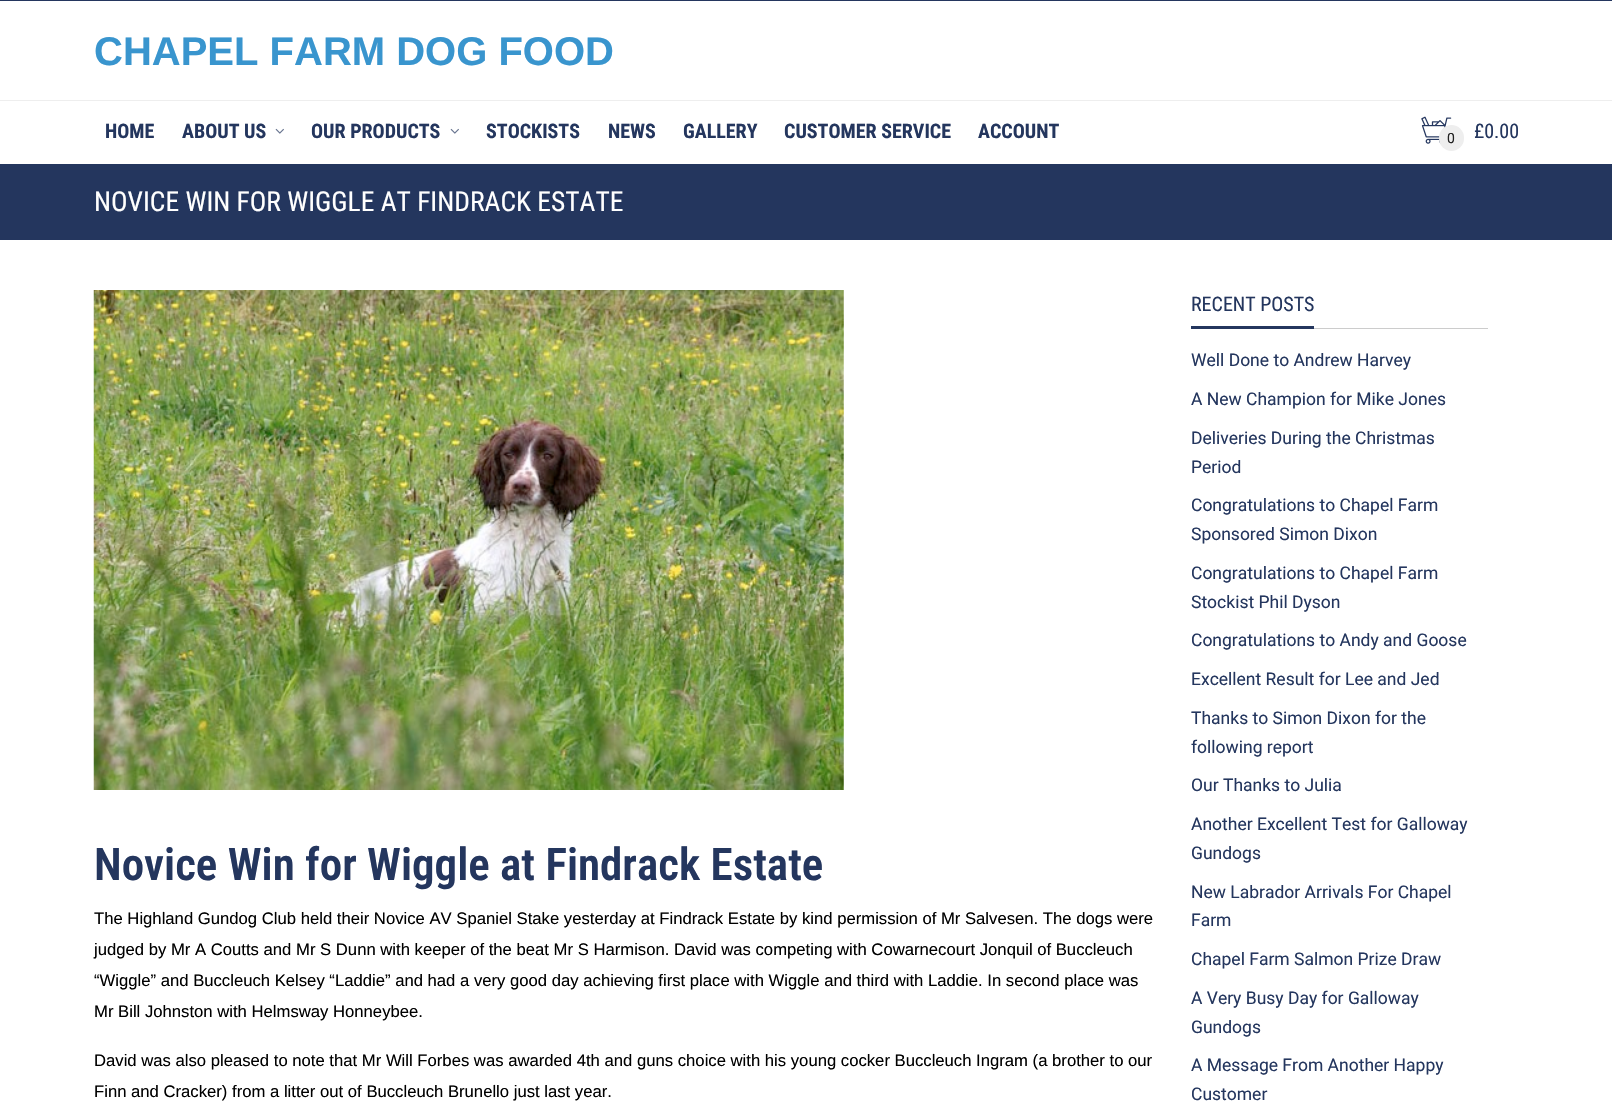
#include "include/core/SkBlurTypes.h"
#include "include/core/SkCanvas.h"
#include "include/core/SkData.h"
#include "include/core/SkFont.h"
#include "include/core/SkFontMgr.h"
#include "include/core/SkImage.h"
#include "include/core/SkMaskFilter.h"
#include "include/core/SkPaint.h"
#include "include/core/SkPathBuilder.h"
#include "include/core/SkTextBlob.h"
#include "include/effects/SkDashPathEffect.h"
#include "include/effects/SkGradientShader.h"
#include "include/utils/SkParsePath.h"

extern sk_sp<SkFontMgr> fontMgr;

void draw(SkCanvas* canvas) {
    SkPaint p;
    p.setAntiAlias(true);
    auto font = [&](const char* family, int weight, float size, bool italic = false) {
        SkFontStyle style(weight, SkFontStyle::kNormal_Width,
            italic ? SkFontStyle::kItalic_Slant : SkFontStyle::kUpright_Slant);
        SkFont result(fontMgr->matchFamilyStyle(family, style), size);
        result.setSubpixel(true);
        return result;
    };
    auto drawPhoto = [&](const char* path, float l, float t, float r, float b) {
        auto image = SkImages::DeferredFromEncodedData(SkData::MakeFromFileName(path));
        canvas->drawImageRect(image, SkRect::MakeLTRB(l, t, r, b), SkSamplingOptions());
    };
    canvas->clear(0xFFFFFFFF);
    p.setColor(0xFF24365E);
    canvas->drawRect(SkRect::MakeLTRB(0, 0, 1612, 1), p);
    p.setColor(0xFFEEEEEE);
    canvas->drawRect(SkRect::MakeLTRB(0, 100, 1612, 101), p);
    auto font1 = font("Liberation Sans", 700, 40);
    p.setColor(0xFF3995CE);
    canvas->drawString("CHAPEL FARM DOG FOOD", 94, 65, font1, p);
    auto font2 = font("Roboto Condensed", 700, 20);
    p.setColor(0xFF24365E);
    canvas->drawString("HOME", 105, 138, font2, p);
    canvas->drawString("ABOUT US", 182, 138, font2, p);
    drawPhoto("media/1.png", 275, 128, 284, 134);
    canvas->drawString("OUR PRODUCTS", 311, 138, font2, p);
    drawPhoto("media/1.png", 450, 128, 459, 134);
    {
        const struct { const char* s; float x, y; } items[] = {
            {"STOCKISTS", 486, 138},
            {"NEWS", 608, 138},
            {"GALLERY", 683, 138},
            {"CUSTOMER SERVICE", 784, 138},
            {"ACCOUNT", 978, 138},
        };
        for (auto [s, x, y] : items) {
            canvas->drawString(s, x, y, font2, p);
        }
    }
    drawPhoto("media/2.png", 1421, 116, 1452, 144);
    p.setColor(0xFFEEEEEE);
    canvas->drawRoundRect(SkRect::MakeLTRB(1439, 125, 1464, 151), 12.5f, 12.5f, p);
    auto font3 = font("Roboto", 400, 14);
    p.setColor(0xFF222222);
    canvas->drawString("0", 1447, 143, font3, p);
    auto font4 = font("Roboto Condensed", 400, 20);
    p.setColor(0xFF24365E);
    canvas->drawString("£0.00", 1474, 138, font4, p);
    canvas->drawRect(SkRect::MakeLTRB(0, 164, 1612, 240), p);
    auto font5 = font("Roboto Condensed", 400, 27.5f);
    p.setColor(0xFFFFFFFF);
    canvas->drawString("NOVICE WIN FOR WIGGLE AT FINDRACK ESTATE", 94, 211, font5, p);
    drawPhoto("media/3.png", 93, 290, 844, 790);
    auto font6 = font("Roboto Condensed", 600, 45);
    p.setColor(0xFF24365E);
    canvas->drawString("Novice Win for Wiggle at Findrack Estate", 94, 880, font6, p);
    auto font7 = font("Liberation Sans", 400, 16.67f);
    p.setColor(0xFF000000);
    {
        const struct { const char* s; float x, y; } items[] = {
            {"The Highland Gundog Club held their Novice AV Spaniel Stake yesterday at Findrack Estate by kind permission of Mr Salvesen. The dogs were", 94, 924},
            {"judged by Mr A Coutts and Mr S Dunn with keeper of the beat Mr S Harmison. David was competing with Cowarnecourt Jonquil of Buccleuch", 94, 955},
            {"“Wiggle” and Buccleuch Kelsey “Laddie” and had a very good day achieving first place with Wiggle and third with Laddie. In second place was", 94, 986},
            {"Mr Bill Johnston with Helmsway Honneybee.", 94, 1017},
            {"David was also pleased to note that Mr Will Forbes was awarded 4th and guns choice with his young cocker Buccleuch Ingram (a brother to our", 94, 1066},
            {"Finn and Cracker) from a litter out of Buccleuch Brunello just last year.", 94, 1097},
        };
        for (auto [s, x, y] : items) {
            canvas->drawString(s, x, y, font7, p);
        }
    }
    p.setColor(0xFFCCCCCC);
    canvas->drawRect(SkRect::MakeLTRB(1314, 328, 1488, 329), p);
    p.setColor(0xFF24365E);
    canvas->drawRect(SkRect::MakeLTRB(1191, 326, 1314, 329), p);
    canvas->drawString("RECENT POSTS", 1191, 311, font4, p);
    auto font8 = font("Roboto", 400, 17.5f);
    {
        const struct { const char* s; float x, y; } items[] = {
            {"Well Done to Andrew Harvey", 1191, 366},
            {"A New Champion for Mike Jones", 1191, 405},
            {"Deliveries During the Christmas", 1191, 444},
            {"Period", 1191, 473},
            {"Congratulations to Chapel Farm", 1191, 511},
            {"Sponsored Simon Dixon", 1191, 540},
            {"Congratulations to Chapel Farm", 1191, 579},
            {"Stockist Phil Dyson", 1191, 608},
            {"Congratulations to Andy and Goose", 1191, 646},
            {"Excellent Result for Lee and Jed", 1191, 685},
            {"Thanks to Simon Dixon for the", 1191, 724},
            {"following report", 1191, 753},
            {"Our Thanks to Julia", 1191, 791},
            {"Another Excellent Test for Galloway", 1191, 830},
            {"Gundogs", 1191, 859},
            {"New Labrador Arrivals For Chapel", 1191, 898},
            {"Farm", 1191, 926},
            {"Chapel Farm Salmon Prize Draw", 1191, 965},
            {"A Very Busy Day for Galloway", 1191, 1004},
            {"Gundogs", 1191, 1033},
            {"A Message From Another Happy", 1191, 1071},
            {"Customer", 1191, 1100},
        };
        for (auto [s, x, y] : items) {
            canvas->drawString(s, x, y, font8, p);
        }
    }
}
